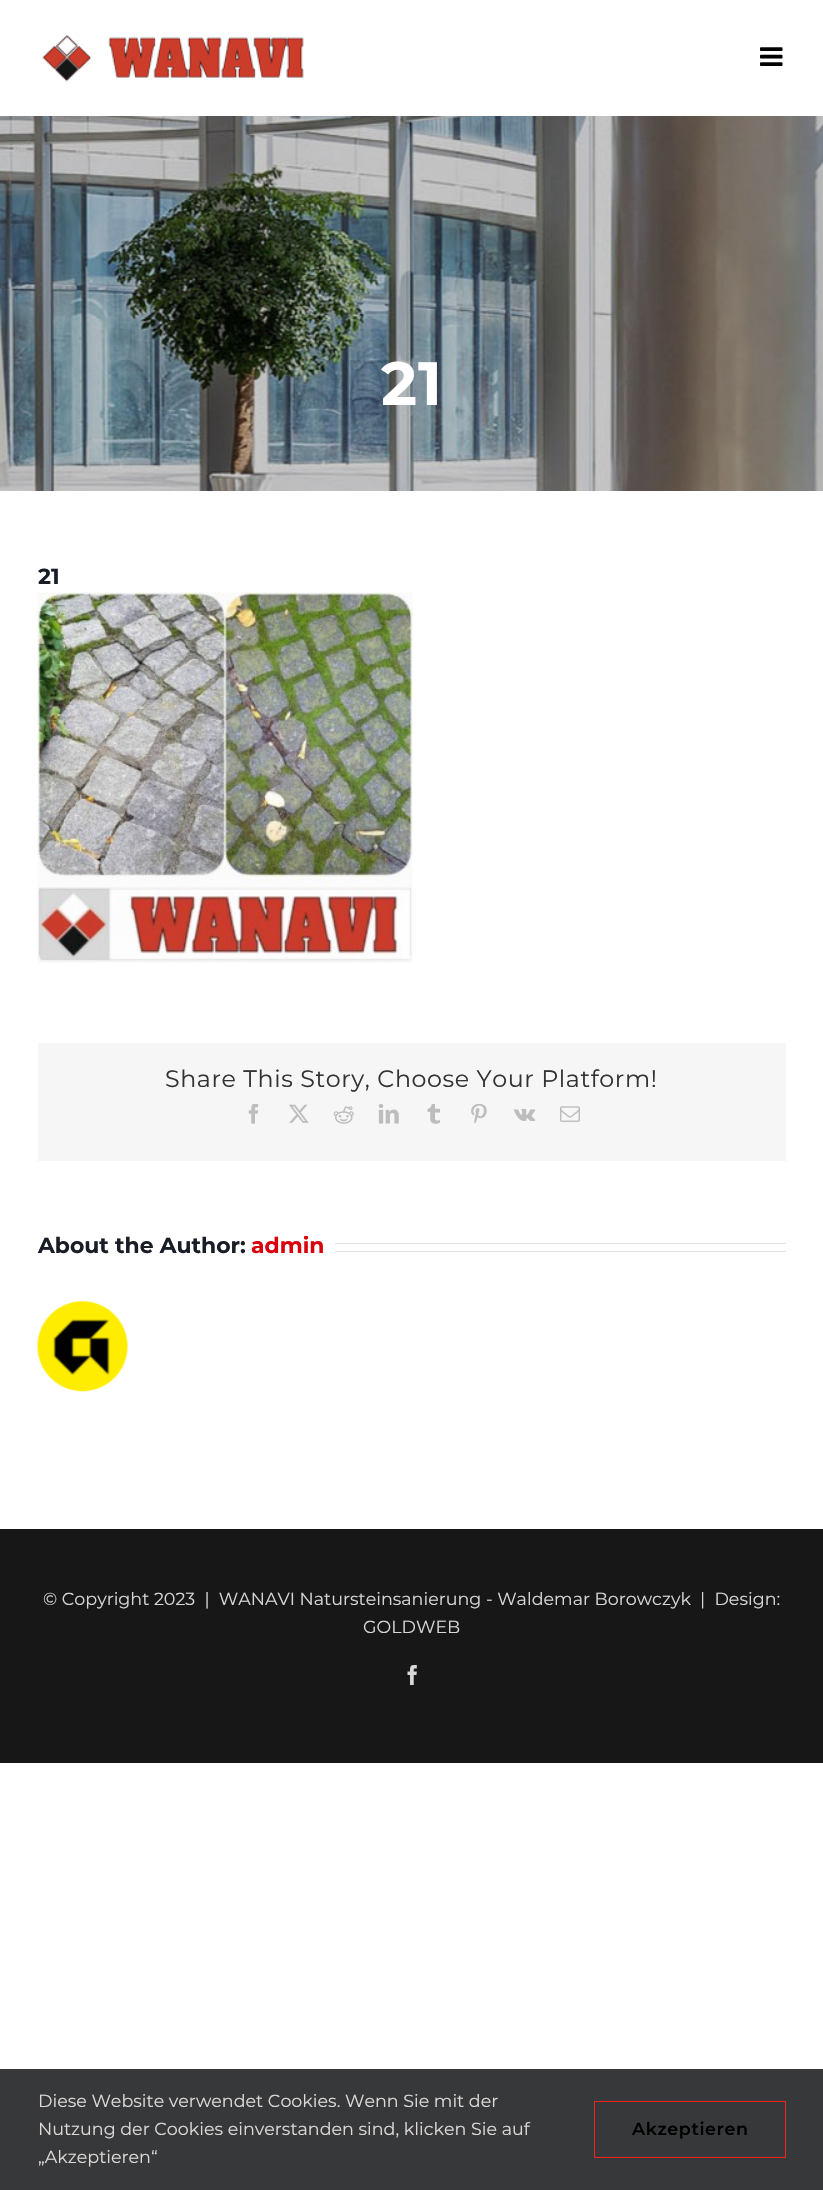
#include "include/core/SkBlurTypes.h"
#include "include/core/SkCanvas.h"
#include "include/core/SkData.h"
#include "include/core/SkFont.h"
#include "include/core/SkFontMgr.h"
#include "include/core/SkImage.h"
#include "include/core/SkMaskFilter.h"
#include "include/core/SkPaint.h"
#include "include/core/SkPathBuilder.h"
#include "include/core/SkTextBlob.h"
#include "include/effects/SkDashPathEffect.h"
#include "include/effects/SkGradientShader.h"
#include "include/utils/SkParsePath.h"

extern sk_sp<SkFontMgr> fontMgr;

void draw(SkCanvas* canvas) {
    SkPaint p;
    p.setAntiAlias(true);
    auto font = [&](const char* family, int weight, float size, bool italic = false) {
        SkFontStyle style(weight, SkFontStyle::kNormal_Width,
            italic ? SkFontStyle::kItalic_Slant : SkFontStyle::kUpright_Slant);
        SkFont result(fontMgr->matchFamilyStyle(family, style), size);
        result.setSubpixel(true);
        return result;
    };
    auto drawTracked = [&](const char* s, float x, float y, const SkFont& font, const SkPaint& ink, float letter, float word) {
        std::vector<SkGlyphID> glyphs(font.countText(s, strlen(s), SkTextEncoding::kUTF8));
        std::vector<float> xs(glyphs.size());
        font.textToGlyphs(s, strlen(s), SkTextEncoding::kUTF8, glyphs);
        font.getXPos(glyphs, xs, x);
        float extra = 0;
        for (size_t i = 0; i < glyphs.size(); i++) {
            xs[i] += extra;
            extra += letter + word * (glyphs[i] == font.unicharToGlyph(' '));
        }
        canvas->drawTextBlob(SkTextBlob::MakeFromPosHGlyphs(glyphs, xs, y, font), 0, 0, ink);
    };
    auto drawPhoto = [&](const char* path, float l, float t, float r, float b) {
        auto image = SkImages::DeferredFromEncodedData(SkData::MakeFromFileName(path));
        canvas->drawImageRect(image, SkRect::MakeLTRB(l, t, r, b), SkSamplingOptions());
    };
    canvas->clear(0xFFFFFFFF);
    drawPhoto("media/1.png", 42, 35, 304, 82);
    drawPhoto("media/2.png", 760, 47, 783, 66);
    drawPhoto("media/3.png", 0, 116, 823, 491);
    auto font1 = font("Montserrat", 700, 61);
    p.setColor(0xFFFFFFFF);
    drawTracked("21", 381, 405, font1, p, 1, 0);
    auto font2 = font("Montserrat", 700, 21.9f);
    p.setColor(0xFF181D26);
    canvas->drawString("21", 38, 584, font2, p);
    drawPhoto("media/4.png", 37, 592, 413, 963);
    p.setColor(0xFFF6F6F6);
    canvas->drawRect(SkRect::MakeLTRB(38, 1043, 786, 1161), p);
    auto font3 = font("Montserrat", 400, 23.75f);
    p.setColor(0xFF333333);
    drawTracked("Share This Story, Choose Your Platform!", 165, 1087, font3, p, 0.6f, 0);
    drawPhoto("media/5.png", 248, 1104, 259, 1124);
    drawPhoto("media/6.png", 289, 1104, 309, 1123);
    drawPhoto("media/7.png", 333, 1106, 354, 1124);
    drawPhoto("media/8.png", 378, 1104, 399, 1124);
    drawPhoto("media/9.png", 427, 1104, 440, 1124);
    drawPhoto("media/10.png", 471, 1104, 487, 1124);
    drawPhoto("media/11.png", 513, 1108, 536, 1121);
    drawPhoto("media/12.png", 560, 1106, 580, 1122);
    p.setColor(0xFF181D26);
    canvas->drawString("About the Author:", 38, 1253, font2, p);
    p.setColor(0xFFDA020D);
    canvas->drawString("admin", 251, 1253, font2, p);
    p.setColor(0xFFE0DEDE);
    canvas->drawRect(SkRect::MakeLTRB(335, 1243, 786, 1244), p);
    canvas->drawRect(SkRect::MakeLTRB(335, 1251, 786, 1252), p);
    drawPhoto("media/13.png", 37, 1301, 128, 1392);
    p.setColor(0xFF171717);
    canvas->drawRect(SkRect::MakeLTRB(0, 1529, 823, 1763), p);
    auto font4 = font("Montserrat", 400, 17.5f);
    p.setColor(0xFFD7D7D7);
    canvas->drawString("© Copyright 2023  |  WANAVI Natursteinsanierung - Waldemar Borowczyk  |  Design:", 43, 1605, font4, p);
    canvas->drawString("GOLDWEB", 363, 1633, font4, p);
    drawPhoto("media/14.png", 407, 1665, 417, 1685);
    p.setColor(0xFF363839);
    canvas->drawRect(SkRect::MakeLTRB(0, 2069, 823, 2190), p);
    p.setColor(0xFFDDD9D9);
    {
        const struct { const char* s; float x, y; } items[] = {
            {"Diese Website verwendet Cookies. Wenn Sie mit der", 38, 2107},
            {"Nutzung der Cookies einverstanden sind, klicken Sie auf", 38, 2135},
            {"„Akzeptieren“", 38, 2163},
        };
        for (auto [s, x, y] : items) {
            canvas->drawString(s, x, y, font4, p);
        }
    }
    p.setStyle(SkPaint::kStroke_Style);
    p.setStrokeWidth(1);
    p.setColor(0xFFF42416);
    canvas->drawRect(SkRect::MakeLTRB(594.5f, 2101.5f, 785.5f, 2157.5f), p);
    auto font5 = font("Montserrat", 600, 17.5f);
    p.setStyle(SkPaint::kFill_Style);
    p.setColor(0xFF000000);
    drawTracked("Akzeptieren", 632, 2135, font5, p, 0.6f, 0);
}
